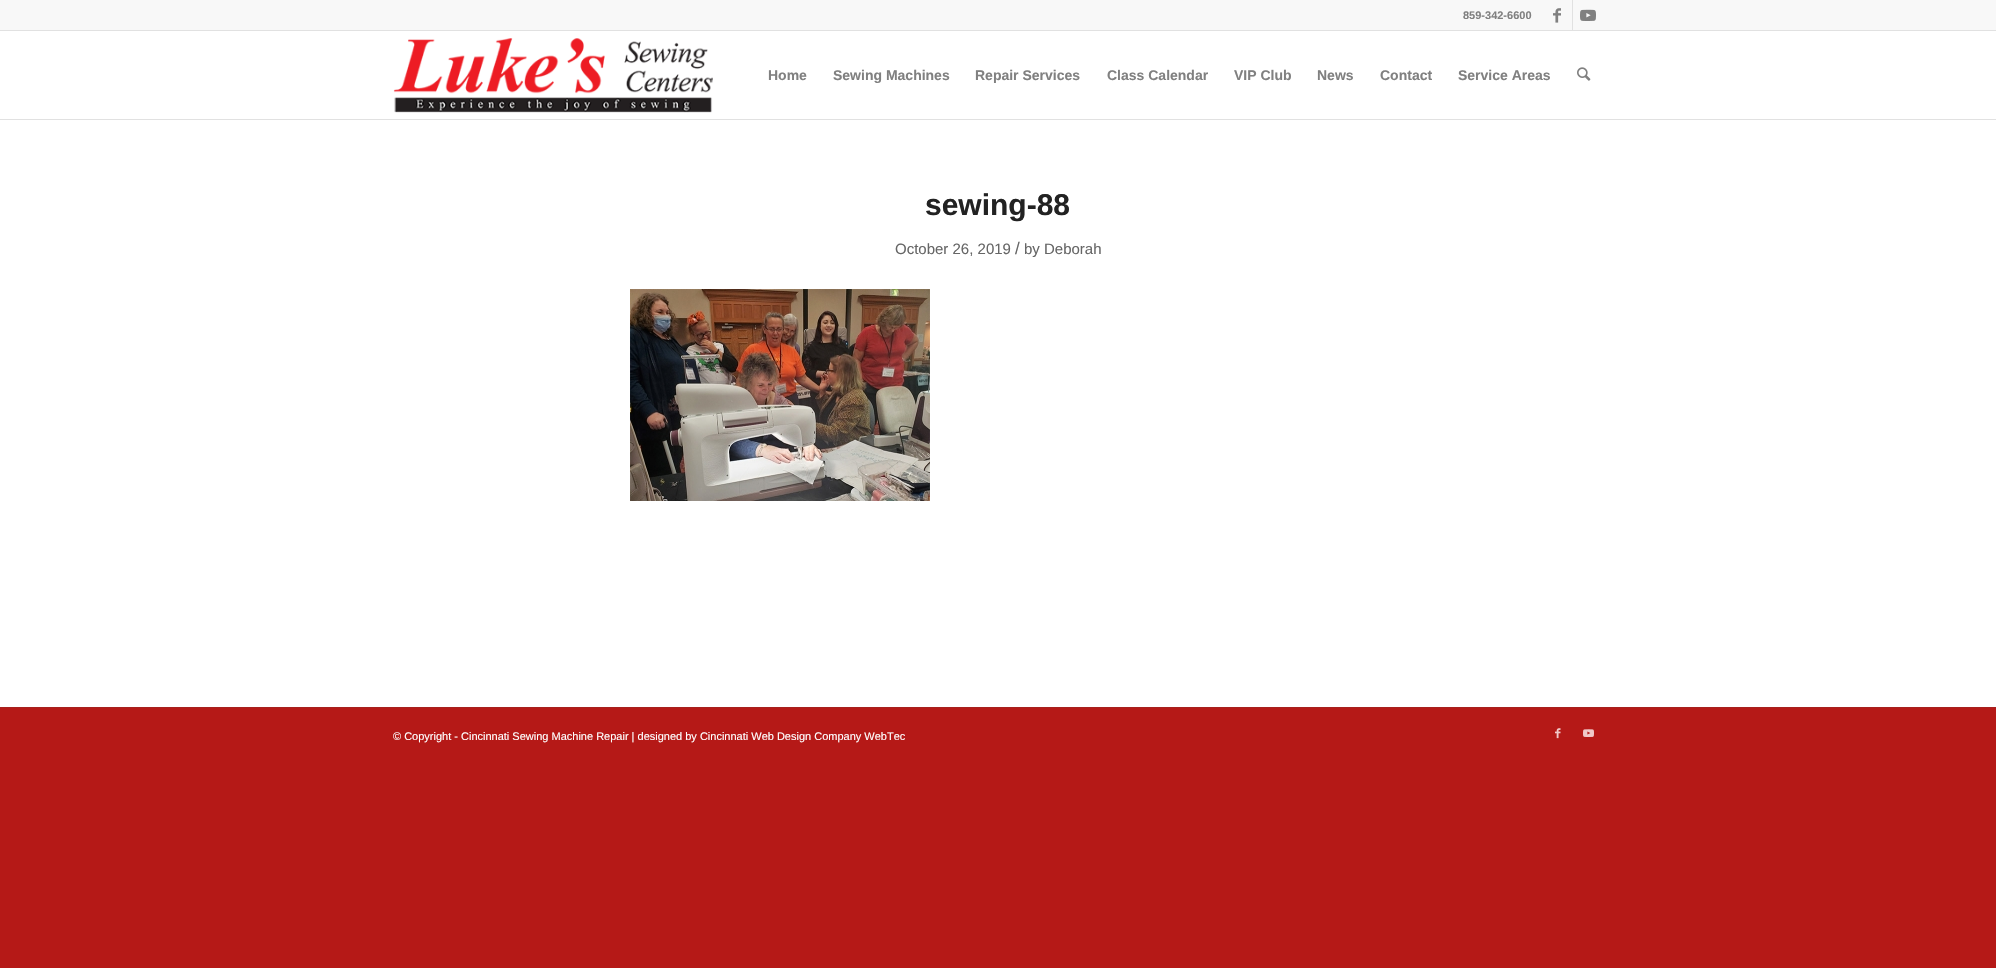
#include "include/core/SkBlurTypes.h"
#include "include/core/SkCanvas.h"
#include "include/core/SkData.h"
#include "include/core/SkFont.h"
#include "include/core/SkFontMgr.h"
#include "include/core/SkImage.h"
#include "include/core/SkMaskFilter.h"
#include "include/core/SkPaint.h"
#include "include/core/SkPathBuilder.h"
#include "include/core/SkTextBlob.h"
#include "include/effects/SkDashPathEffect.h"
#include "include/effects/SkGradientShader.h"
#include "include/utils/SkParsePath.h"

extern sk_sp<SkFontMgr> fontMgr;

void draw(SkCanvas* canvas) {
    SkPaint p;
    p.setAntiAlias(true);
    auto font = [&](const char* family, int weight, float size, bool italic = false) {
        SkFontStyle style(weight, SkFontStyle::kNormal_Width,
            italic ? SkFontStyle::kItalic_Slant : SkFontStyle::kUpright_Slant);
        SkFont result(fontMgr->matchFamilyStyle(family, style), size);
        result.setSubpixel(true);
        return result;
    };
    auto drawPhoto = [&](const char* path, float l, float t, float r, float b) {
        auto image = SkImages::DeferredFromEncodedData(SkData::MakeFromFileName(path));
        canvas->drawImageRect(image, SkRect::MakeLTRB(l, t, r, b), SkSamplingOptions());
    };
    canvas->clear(0xFFB51917);
    {
        const struct { float l, t, r, b; SkColor color; } items[] = {
            {0, 120, 1996, 707, 0xFFFFFFFF},
            {0, 31, 1996, 119, 0xFFFFFFFF},
            {0, 0, 1996, 30, 0xFFF8F8F8},
            {0, 30, 1996, 31, 0xFFE1E1E1},
        };
        for (auto [l, t, r, b, color] : items) {
            p.setColor(color);
            canvas->drawRect(SkRect::MakeLTRB(l, t, r, b), p);
        }
    }
    auto font1 = font("Liberation Sans", 700, 11);
    p.setColor(0xFF808080);
    canvas->drawString("859-342-6600", 1463, 19, font1, p);
    p.setColor(0xFFE1E1E1);
    canvas->drawRect(SkRect::MakeLTRB(1572, 0, 1573, 30), p);
    drawPhoto("media/1.png", 1553, 8, 1561, 23);
    drawPhoto("media/2.png", 1580, 9, 1596, 21);
    canvas->drawRect(SkRect::MakeLTRB(0, 119, 1996, 120), p);
    drawPhoto("media/3.png", 393, 38, 713, 113);
    auto font2 = font("Liberation Sans", 700, 14);
    p.setColor(0xFF808080);
    {
        const struct { const char* s; float x, y; } items[] = {
            {"Home", 768, 80},
            {"Sewing Machines", 833, 80},
            {"Repair Services", 975, 80},
            {"Class Calendar", 1107, 80},
            {"VIP Club", 1234, 80},
            {"News", 1317, 80},
            {"Contact", 1380, 80},
            {"Service Areas", 1458, 80},
        };
        for (auto [s, x, y] : items) {
            canvas->drawString(s, x, y, font2, p);
        }
    }
    drawPhoto("media/4.png", 1577, 67, 1591, 81);
    auto font3 = font("Liberation Sans", 700, 30);
    p.setColor(0xFF222222);
    canvas->drawString("sewing-88", 925, 215, font3, p);
    auto font4 = font("Liberation Sans", 400, 15);
    p.setColor(0xFF666666);
    canvas->drawString("October 26, 2019", 895, 254, font4, p);
    auto font5 = font("Liberation Sans", 400, 17);
    canvas->drawString("/", 1015, 254, font5, p);
    canvas->drawString("by Deborah", 1024, 254, font4, p);
    drawPhoto("media/5.png", 630, 289, 930, 501);
    p.setColor(0xFFA6211F);
    canvas->drawRect(SkRect::MakeLTRB(0, 707, 1996, 708), p);
    auto font6 = font("Liberation Sans", 400, 11);
    p.setColor(0xFFFFFFFF);
    canvas->drawString("© Copyright - Cincinnati Sewing Machine Repair | designed by Cincinnati Web Design Company WebTec", 393, 740, font6, p);
    drawPhoto("media/6.png", 1555, 728, 1561, 739);
    drawPhoto("media/7.png", 1583, 729, 1594, 737);
}
